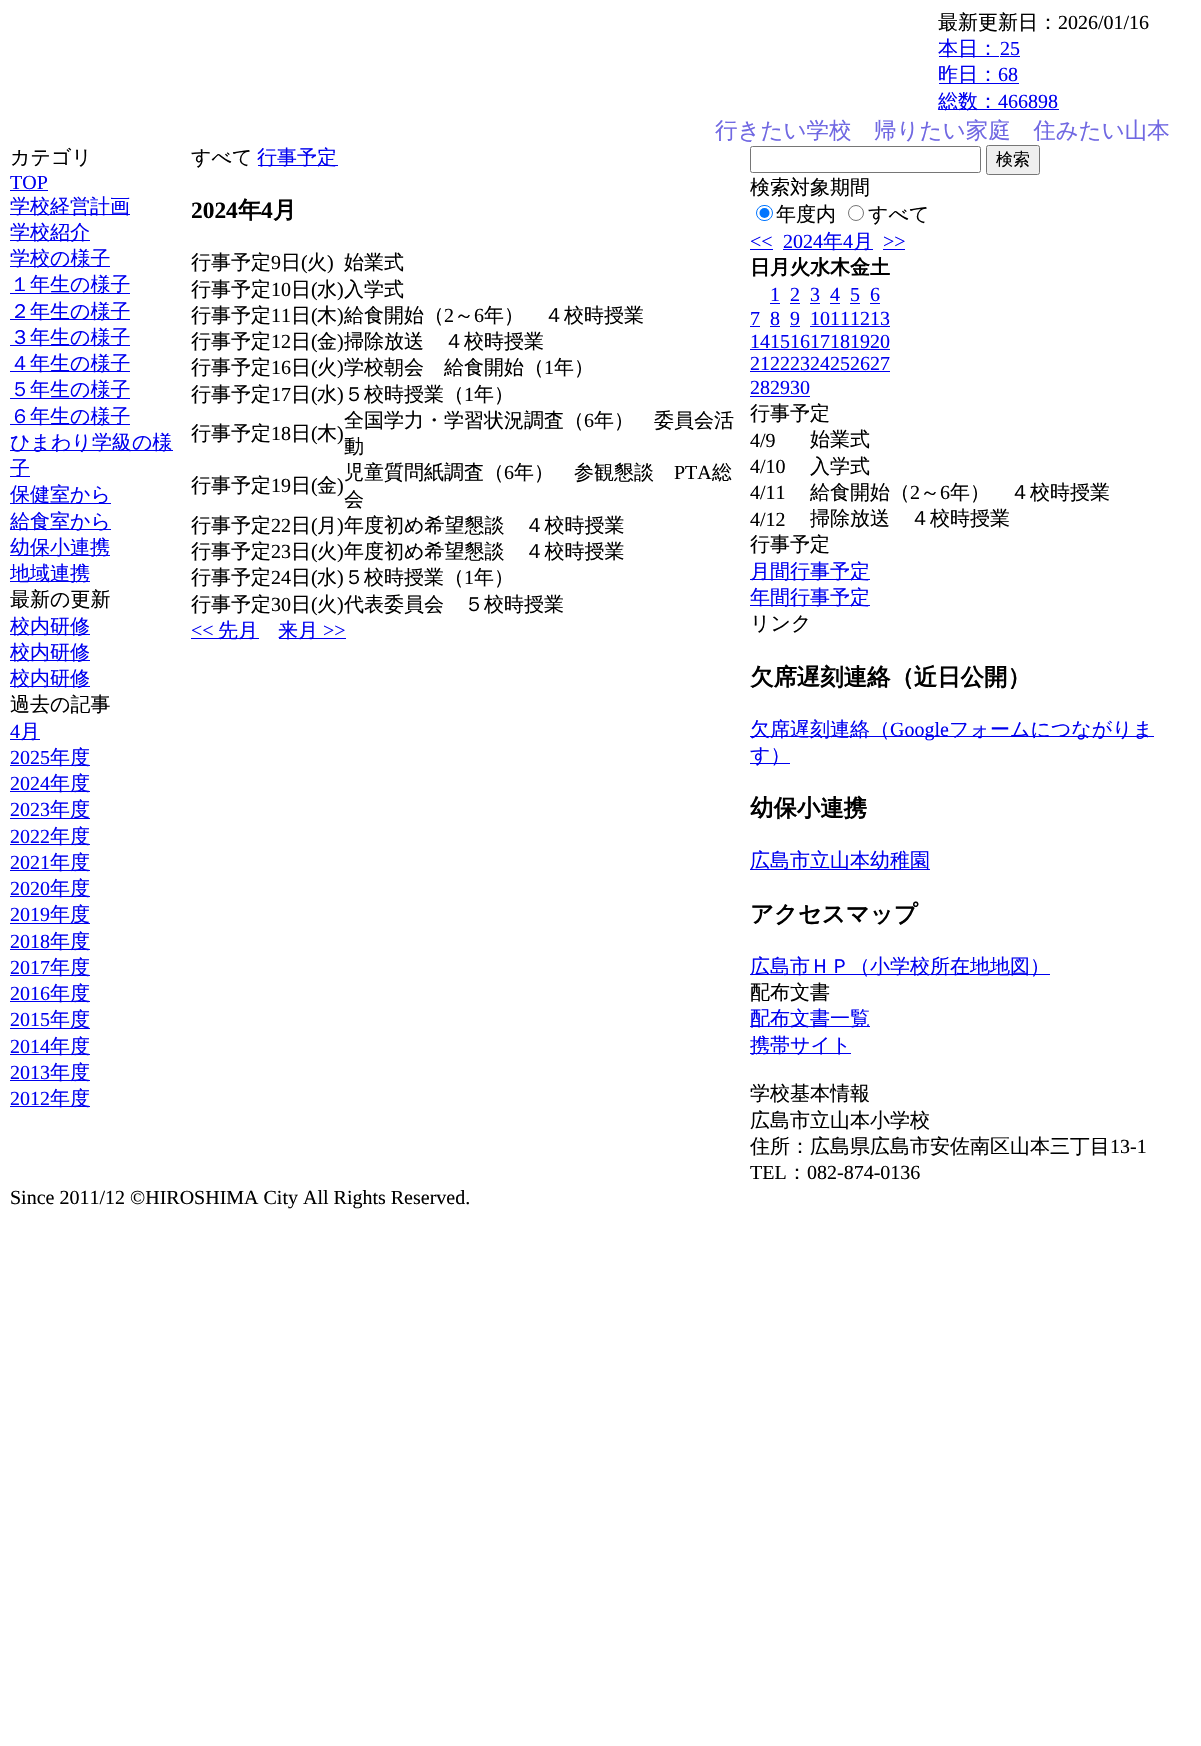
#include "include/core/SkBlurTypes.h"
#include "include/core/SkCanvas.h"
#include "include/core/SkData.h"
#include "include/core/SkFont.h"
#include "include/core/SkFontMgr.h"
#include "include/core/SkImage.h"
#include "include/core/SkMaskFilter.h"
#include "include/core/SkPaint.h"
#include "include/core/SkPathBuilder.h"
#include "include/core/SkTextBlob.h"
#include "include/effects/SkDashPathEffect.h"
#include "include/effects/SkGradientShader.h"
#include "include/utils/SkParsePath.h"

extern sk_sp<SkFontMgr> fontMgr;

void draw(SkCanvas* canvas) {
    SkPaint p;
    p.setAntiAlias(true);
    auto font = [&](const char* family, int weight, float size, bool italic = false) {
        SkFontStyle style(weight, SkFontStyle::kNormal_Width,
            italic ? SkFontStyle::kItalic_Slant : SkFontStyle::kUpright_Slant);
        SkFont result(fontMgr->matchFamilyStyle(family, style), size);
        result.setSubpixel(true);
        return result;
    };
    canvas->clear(0xFFFFFFFF);
    auto font1 = font("WenQuanYi Zen Hei", 500, 20);
    p.setColor(0xFF000000);
    canvas->drawString("最新更新日：", 938, 29, font1, p);
    auto font2 = font("Liberation Serif", 400, 20);
    canvas->drawString("2026/01/16", 1058, 29, font2, p);
    p.setColor(0xFF0000EE);
    canvas->drawRect(SkRect::MakeLTRB(939, 56, 999, 57), p);
    canvas->drawString("本日：", 938, 55, font1, p);
    canvas->drawString("25", 1000, 55, font2, p);
    canvas->drawRect(SkRect::MakeLTRB(1000, 56, 1020, 57), p);
    canvas->drawRect(SkRect::MakeLTRB(939, 83, 1019, 84), p);
    canvas->drawString("昨日：", 938, 81, font1, p);
    canvas->drawString("68", 998, 81, font2, p);
    canvas->drawRect(SkRect::MakeLTRB(939, 109, 1059, 110), p);
    canvas->drawString("総数：", 938, 108, font1, p);
    canvas->drawString("466898", 998, 108, font2, p);
    auto font3 = font("WenQuanYi Zen Hei", 500, 22.5f);
    p.setColor(0xFF7068E2);
    canvas->drawString("行きたい学校　帰りたい家庭　住みたい山本", 715, 138, font3, p);
    p.setColor(0xFF000000);
    canvas->drawString("カテゴリ", 10, 164, font1, p);
    p.setColor(0xFF0000EE);
    canvas->drawString("TOP", 10, 189, font2, p);
    canvas->drawRect(SkRect::MakeLTRB(10, 190, 48, 191), p);
    canvas->drawRect(SkRect::MakeLTRB(10, 214, 130, 215), p);
    canvas->drawString("学校経営計画", 10, 213, font1, p);
    canvas->drawRect(SkRect::MakeLTRB(10, 240, 90, 241), p);
    canvas->drawString("学校紹介", 10, 239, font1, p);
    canvas->drawRect(SkRect::MakeLTRB(10, 266, 110, 267), p);
    canvas->drawString("学校の様子", 10, 265, font1, p);
    canvas->drawRect(SkRect::MakeLTRB(10, 293, 130, 294), p);
    canvas->drawString("１年生の様子", 10, 291, font1, p);
    canvas->drawRect(SkRect::MakeLTRB(10, 319, 130, 320), p);
    canvas->drawString("２年生の様子", 10, 318, font1, p);
    canvas->drawRect(SkRect::MakeLTRB(10, 345, 130, 346), p);
    canvas->drawString("３年生の様子", 10, 344, font1, p);
    canvas->drawRect(SkRect::MakeLTRB(10, 371, 130, 372), p);
    canvas->drawString("４年生の様子", 10, 370, font1, p);
    canvas->drawRect(SkRect::MakeLTRB(10, 398, 130, 399), p);
    canvas->drawString("５年生の様子", 10, 396, font1, p);
    canvas->drawRect(SkRect::MakeLTRB(10, 424, 130, 425), p);
    canvas->drawString("６年生の様子", 10, 423, font1, p);
    canvas->drawRect(SkRect::MakeLTRB(10, 450, 173, 451), p);
    canvas->drawString("ひまわり学級の様", 10, 449, font1, p);
    canvas->drawRect(SkRect::MakeLTRB(10, 476, 30, 477), p);
    canvas->drawString("子", 10, 475, font1, p);
    canvas->drawRect(SkRect::MakeLTRB(10, 503, 111, 504), p);
    canvas->drawString("保健室から", 10, 501, font1, p);
    canvas->drawRect(SkRect::MakeLTRB(10, 529, 111, 530), p);
    canvas->drawString("給食室から", 10, 528, font1, p);
    canvas->drawRect(SkRect::MakeLTRB(10, 555, 110, 556), p);
    canvas->drawString("幼保小連携", 10, 554, font1, p);
    canvas->drawRect(SkRect::MakeLTRB(10, 581, 90, 582), p);
    canvas->drawString("地域連携", 10, 580, font1, p);
    p.setColor(0xFF000000);
    canvas->drawString("最新の更新", 10, 606, font1, p);
    p.setColor(0xFF0000EE);
    canvas->drawRect(SkRect::MakeLTRB(10, 634, 90, 635), p);
    canvas->drawString("校内研修", 10, 633, font1, p);
    canvas->drawRect(SkRect::MakeLTRB(10, 660, 90, 661), p);
    canvas->drawString("校内研修", 10, 659, font1, p);
    canvas->drawRect(SkRect::MakeLTRB(10, 686, 90, 687), p);
    canvas->drawString("校内研修", 10, 685, font1, p);
    p.setColor(0xFF000000);
    canvas->drawString("過去の記事", 10, 711, font1, p);
    p.setColor(0xFF0000EE);
    canvas->drawString("4", 10, 738, font2, p);
    canvas->drawRect(SkRect::MakeLTRB(10, 739, 40, 740), p);
    canvas->drawString("月", 20, 738, font1, p);
    canvas->drawString("2025", 10, 764, font2, p);
    canvas->drawRect(SkRect::MakeLTRB(10, 765, 90, 766), p);
    canvas->drawString("年度", 50, 764, font1, p);
    canvas->drawString("2024", 10, 790, font2, p);
    canvas->drawRect(SkRect::MakeLTRB(10, 791, 90, 792), p);
    canvas->drawString("年度", 50, 790, font1, p);
    canvas->drawString("2023", 10, 816, font2, p);
    canvas->drawRect(SkRect::MakeLTRB(10, 818, 90, 819), p);
    canvas->drawString("年度", 50, 816, font1, p);
    canvas->drawString("2022", 10, 843, font2, p);
    canvas->drawRect(SkRect::MakeLTRB(10, 844, 90, 845), p);
    canvas->drawString("年度", 50, 843, font1, p);
    canvas->drawString("2021", 10, 869, font2, p);
    canvas->drawRect(SkRect::MakeLTRB(10, 870, 90, 871), p);
    canvas->drawString("年度", 50, 869, font1, p);
    canvas->drawString("2020", 10, 895, font2, p);
    canvas->drawRect(SkRect::MakeLTRB(10, 896, 90, 897), p);
    canvas->drawString("年度", 50, 895, font1, p);
    canvas->drawString("2019", 10, 921, font2, p);
    canvas->drawRect(SkRect::MakeLTRB(10, 923, 90, 924), p);
    canvas->drawString("年度", 50, 921, font1, p);
    canvas->drawString("2018", 10, 948, font2, p);
    canvas->drawRect(SkRect::MakeLTRB(10, 949, 90, 950), p);
    canvas->drawString("年度", 50, 948, font1, p);
    canvas->drawString("2017", 10, 974, font2, p);
    canvas->drawRect(SkRect::MakeLTRB(10, 975, 90, 976), p);
    canvas->drawString("年度", 50, 974, font1, p);
    canvas->drawString("2016", 10, 1000, font2, p);
    canvas->drawRect(SkRect::MakeLTRB(10, 1001, 90, 1002), p);
    canvas->drawString("年度", 50, 1000, font1, p);
    canvas->drawString("2015", 10, 1026, font2, p);
    canvas->drawRect(SkRect::MakeLTRB(10, 1028, 90, 1029), p);
    canvas->drawString("年度", 50, 1026, font1, p);
    canvas->drawString("2014", 10, 1053, font2, p);
    canvas->drawRect(SkRect::MakeLTRB(10, 1054, 90, 1055), p);
    canvas->drawString("年度", 50, 1053, font1, p);
    canvas->drawString("2013", 10, 1079, font2, p);
    canvas->drawRect(SkRect::MakeLTRB(10, 1080, 90, 1081), p);
    canvas->drawString("年度", 50, 1079, font1, p);
    canvas->drawString("2012", 10, 1105, font2, p);
    canvas->drawRect(SkRect::MakeLTRB(10, 1106, 90, 1107), p);
    canvas->drawString("年度", 50, 1105, font1, p);
    p.setColor(0xFF000000);
    canvas->drawString("すべて", 191, 164, font1, p);
    p.setColor(0xFF0000EE);
    canvas->drawRect(SkRect::MakeLTRB(258, 165, 338, 166), p);
    canvas->drawString("行事予定", 257, 164, font1, p);
    auto font4 = font("Liberation Serif", 700, 23.4f);
    p.setColor(0xFF000000);
    canvas->drawString("2024", 191, 218, font4, p);
    auto font5 = font("WenQuanYi Zen Hei", 700, 23.4f);
    canvas->drawString("年", 238, 218, font5, p);
    canvas->drawString("4", 261, 218, font4, p);
    canvas->drawString("月", 273, 218, font5, p);
    canvas->drawString("行事予定", 191, 269, font1, p);
    canvas->drawString("9", 271, 269, font2, p);
    canvas->drawString("日", 281, 269, font1, p);
    canvas->drawString("(", 301, 269, font2, p);
    canvas->drawString("火", 307, 269, font1, p);
    canvas->drawString(")", 327, 269, font2, p);
    canvas->drawString("始業式", 344, 269, font1, p);
    canvas->drawString("行事予定", 191, 296, font1, p);
    canvas->drawString("10", 271, 296, font2, p);
    canvas->drawString("日", 291, 296, font1, p);
    canvas->drawString("(", 311, 296, font2, p);
    canvas->drawString("水", 317, 296, font1, p);
    canvas->drawString(")", 337, 296, font2, p);
    canvas->drawString("入学式", 344, 296, font1, p);
    canvas->drawString("行事予定", 191, 322, font1, p);
    canvas->drawString("11", 271, 322, font2, p);
    canvas->drawString("日", 291, 322, font1, p);
    canvas->drawString("(", 311, 322, font2, p);
    canvas->drawString("木", 317, 322, font1, p);
    canvas->drawString(")", 337, 322, font2, p);
    canvas->drawString("給食開始（", 344, 322, font1, p);
    canvas->drawString("2", 444, 322, font2, p);
    canvas->drawString("～", 454, 322, font1, p);
    canvas->drawString("6", 474, 322, font2, p);
    canvas->drawString("年）　４校時授業", 484, 322, font1, p);
    canvas->drawString("行事予定", 191, 348, font1, p);
    canvas->drawString("12", 271, 348, font2, p);
    canvas->drawString("日", 291, 348, font1, p);
    canvas->drawString("(", 311, 348, font2, p);
    canvas->drawString("金", 317, 348, font1, p);
    canvas->drawString(")", 337, 348, font2, p);
    canvas->drawString("掃除放送　４校時授業", 344, 348, font1, p);
    canvas->drawString("行事予定", 191, 374, font1, p);
    canvas->drawString("16", 271, 374, font2, p);
    canvas->drawString("日", 291, 374, font1, p);
    canvas->drawString("(", 311, 374, font2, p);
    canvas->drawString("火", 317, 374, font1, p);
    canvas->drawString(")", 337, 374, font2, p);
    canvas->drawString("学校朝会　給食開始（", 344, 374, font1, p);
    canvas->drawString("1", 544, 374, font2, p);
    canvas->drawString("年）", 554, 374, font1, p);
    canvas->drawString("行事予定", 191, 401, font1, p);
    canvas->drawString("17", 271, 401, font2, p);
    canvas->drawString("日", 291, 401, font1, p);
    canvas->drawString("(", 311, 401, font2, p);
    canvas->drawString("水", 317, 401, font1, p);
    canvas->drawString(")", 337, 401, font2, p);
    canvas->drawString("５校時授業（", 344, 401, font1, p);
    canvas->drawString("1", 464, 401, font2, p);
    canvas->drawString("年）", 474, 401, font1, p);
    canvas->drawString("行事予定", 191, 440, font1, p);
    canvas->drawString("18", 271, 440, font2, p);
    canvas->drawString("日", 291, 440, font1, p);
    canvas->drawString("(", 311, 440, font2, p);
    canvas->drawString("木", 317, 440, font1, p);
    canvas->drawString(")", 337, 440, font2, p);
    canvas->drawString("全国学力・学習状況調査（", 344, 427, font1, p);
    canvas->drawString("6", 584, 427, font2, p);
    {
        const struct { const char* s; float x, y; } items[] = {
            {"年）　委員会活", 594, 427},
            {"動", 344, 453},
            {"行事予定", 191, 492},
        };
        for (auto [s, x, y] : items) {
            canvas->drawString(s, x, y, font1, p);
        }
    }
    canvas->drawString("19", 271, 492, font2, p);
    canvas->drawString("日", 291, 492, font1, p);
    canvas->drawString("(", 311, 492, font2, p);
    canvas->drawString("金", 317, 492, font1, p);
    canvas->drawString(")", 337, 492, font2, p);
    canvas->drawString("児童質問紙調査（", 344, 479, font1, p);
    canvas->drawString("6", 504, 479, font2, p);
    canvas->drawString("年）　参観懇談", 514, 479, font1, p);
    canvas->drawString("PTA", 674, 479, font2, p);
    {
        const struct { const char* s; float x, y; } items[] = {
            {"総", 712, 479},
            {"会", 344, 506},
            {"行事予定", 191, 532},
        };
        for (auto [s, x, y] : items) {
            canvas->drawString(s, x, y, font1, p);
        }
    }
    canvas->drawString("22", 271, 532, font2, p);
    canvas->drawString("日", 291, 532, font1, p);
    canvas->drawString("(", 311, 532, font2, p);
    canvas->drawString("月", 317, 532, font1, p);
    canvas->drawString(")", 337, 532, font2, p);
    canvas->drawString("年度初め希望懇談　４校時授業", 344, 532, font1, p);
    canvas->drawString("行事予定", 191, 558, font1, p);
    canvas->drawString("23", 271, 558, font2, p);
    canvas->drawString("日", 291, 558, font1, p);
    canvas->drawString("(", 311, 558, font2, p);
    canvas->drawString("火", 317, 558, font1, p);
    canvas->drawString(")", 337, 558, font2, p);
    canvas->drawString("年度初め希望懇談　４校時授業", 344, 558, font1, p);
    canvas->drawString("行事予定", 191, 584, font1, p);
    canvas->drawString("24", 271, 584, font2, p);
    canvas->drawString("日", 291, 584, font1, p);
    canvas->drawString("(", 311, 584, font2, p);
    canvas->drawString("水", 317, 584, font1, p);
    canvas->drawString(")", 337, 584, font2, p);
    canvas->drawString("５校時授業（", 344, 584, font1, p);
    canvas->drawString("1", 464, 584, font2, p);
    canvas->drawString("年）", 474, 584, font1, p);
    canvas->drawString("行事予定", 191, 611, font1, p);
    canvas->drawString("30", 271, 611, font2, p);
    canvas->drawString("日", 291, 611, font1, p);
    canvas->drawString("(", 311, 611, font2, p);
    canvas->drawString("火", 317, 611, font1, p);
    canvas->drawString(")", 337, 611, font2, p);
    canvas->drawString("代表委員会　５校時授業", 344, 611, font1, p);
    p.setColor(0xFF0000EE);
    canvas->drawString("<<", 191, 637, font2, p);
    canvas->drawRect(SkRect::MakeLTRB(191, 638, 259, 639), p);
    canvas->drawString("先月", 218, 637, font1, p);
    canvas->drawRect(SkRect::MakeLTRB(279, 638, 346, 639), p);
    canvas->drawString("来月", 278, 637, font1, p);
    canvas->drawString(">>", 323, 637, font2, p);
    p.setStyle(SkPaint::kStroke_Style);
    p.setStrokeWidth(1);
    p.setColor(0xFF767676);
    canvas->drawRoundRect(SkRect::MakeLTRB(750.5f, 146.5f, 980.5f, 172.5f), 2, 2, p);
    p.setStyle(SkPaint::kFill_Style);
    p.setColor(0xFFEFEFEF);
    canvas->drawRoundRect(SkRect::MakeLTRB(986.5f, 145.5f, 1039.5f, 174.5f), 2, 2, p);
    p.setStyle(SkPaint::kStroke_Style);
    p.setColor(0xFF767676);
    canvas->drawRoundRect(SkRect::MakeLTRB(986.5f, 145.5f, 1039.5f, 174.5f), 2, 2, p);
    auto font6 = font("WenQuanYi Zen Hei", 500, 17);
    p.setStyle(SkPaint::kFill_Style);
    p.setColor(0xFF000000);
    canvas->drawString("検索", 996, 165, font6, p);
    canvas->drawString("検索対象期間", 750, 194, font1, p);
    p.setStyle(SkPaint::kStroke_Style);
    p.setColor(0xFF0075FF);
    canvas->drawRoundRect(SkRect::MakeLTRB(756.5f, 205.5f, 772.5f, 220.5f), 7.5f, 7.5f, p);
    p.setStyle(SkPaint::kFill_Style);
    canvas->drawCircle(764.5f, 213, 5, p);
    p.setColor(0xFF000000);
    canvas->drawString("年度内", 776, 221, font1, p);
    p.setStyle(SkPaint::kStroke_Style);
    p.setColor(0xFF767676);
    canvas->drawCircle(856, 213, 7.5f, p);
    p.setStyle(SkPaint::kFill_Style);
    p.setColor(0xFF000000);
    canvas->drawString("すべて", 868, 221, font1, p);
    p.setColor(0xFF0000EE);
    canvas->drawString("<<", 750, 248, font2, p);
    canvas->drawRect(SkRect::MakeLTRB(750, 249, 773, 250), p);
    canvas->drawString("2024", 783, 248, font2, p);
    canvas->drawRect(SkRect::MakeLTRB(783, 249, 873, 250), p);
    canvas->drawString("年", 823, 248, font1, p);
    canvas->drawString("4", 843, 248, font2, p);
    canvas->drawString("月", 853, 248, font1, p);
    canvas->drawString(">>", 883, 248, font2, p);
    canvas->drawRect(SkRect::MakeLTRB(883, 249, 905, 250), p);
    auto font7 = font("WenQuanYi Zen Hei", 700, 20);
    p.setColor(0xFF000000);
    canvas->drawString("日月火水木金土", 750, 274, font7, p);
    p.setColor(0xFF0000EE);
    canvas->drawString("1", 770, 301, font2, p);
    canvas->drawRect(SkRect::MakeLTRB(770, 303, 780, 304), p);
    canvas->drawString("2", 790, 301, font2, p);
    canvas->drawRect(SkRect::MakeLTRB(790, 303, 800, 304), p);
    canvas->drawString("3", 810, 301, font2, p);
    canvas->drawRect(SkRect::MakeLTRB(810, 303, 820, 304), p);
    canvas->drawString("4", 830, 301, font2, p);
    canvas->drawRect(SkRect::MakeLTRB(830, 303, 840, 304), p);
    canvas->drawString("5", 850, 301, font2, p);
    canvas->drawRect(SkRect::MakeLTRB(850, 303, 860, 304), p);
    canvas->drawString("6", 870, 301, font2, p);
    canvas->drawRect(SkRect::MakeLTRB(870, 303, 880, 304), p);
    canvas->drawString("7", 750, 325, font2, p);
    canvas->drawRect(SkRect::MakeLTRB(750, 326, 760, 327), p);
    canvas->drawString("8", 770, 325, font2, p);
    canvas->drawRect(SkRect::MakeLTRB(770, 326, 780, 327), p);
    canvas->drawString("9", 790, 325, font2, p);
    canvas->drawRect(SkRect::MakeLTRB(790, 326, 800, 327), p);
    canvas->drawString("10111213", 810, 325, font2, p);
    canvas->drawRect(SkRect::MakeLTRB(810, 326, 890, 327), p);
    canvas->drawString("14151617181920", 750, 348, font2, p);
    canvas->drawRect(SkRect::MakeLTRB(750, 349, 890, 350), p);
    canvas->drawString("21222324252627", 750, 370, font2, p);
    canvas->drawRect(SkRect::MakeLTRB(750, 371, 890, 372), p);
    canvas->drawString("282930", 750, 394, font2, p);
    canvas->drawRect(SkRect::MakeLTRB(750, 396, 810, 397), p);
    p.setColor(0xFF000000);
    canvas->drawString("行事予定", 750, 420, font1, p);
    canvas->drawString("4/9", 750, 447, font2, p);
    canvas->drawString("始業式", 810, 446, font1, p);
    canvas->drawString("4/10", 750, 473, font2, p);
    canvas->drawString("入学式", 810, 473, font1, p);
    canvas->drawString("4/11", 750, 499, font2, p);
    canvas->drawString("給食開始（", 810, 499, font1, p);
    canvas->drawString("2", 910, 499, font2, p);
    canvas->drawString("～", 920, 499, font1, p);
    canvas->drawString("6", 940, 499, font2, p);
    canvas->drawString("年）　４校時授業", 950, 499, font1, p);
    canvas->drawString("4/12", 750, 526, font2, p);
    canvas->drawString("掃除放送　４校時授業", 810, 525, font1, p);
    canvas->drawString("行事予定", 750, 551, font1, p);
    p.setColor(0xFF0000EE);
    canvas->drawRect(SkRect::MakeLTRB(750, 579, 870, 580), p);
    canvas->drawString("月間行事予定", 750, 578, font1, p);
    canvas->drawRect(SkRect::MakeLTRB(750, 605, 870, 606), p);
    canvas->drawString("年間行事予定", 750, 604, font1, p);
    p.setColor(0xFF000000);
    canvas->drawString("リンク", 750, 630, font1, p);
    canvas->drawString("欠席遅刻連絡（近日公開）", 750, 685, font5, p);
    p.setColor(0xFF0000EE);
    canvas->drawRect(SkRect::MakeLTRB(750, 736, 1154, 737), p);
    canvas->drawString("欠席遅刻連絡（", 750, 736, font1, p);
    canvas->drawString("Google", 890, 736, font2, p);
    canvas->drawString("フォームにつながりま", 949, 736, font1, p);
    canvas->drawRect(SkRect::MakeLTRB(750, 763, 790, 764), p);
    canvas->drawString("す）", 750, 762, font1, p);
    p.setColor(0xFF000000);
    canvas->drawString("幼保小連携", 750, 816, font5, p);
    p.setColor(0xFF0000EE);
    canvas->drawRect(SkRect::MakeLTRB(750, 869, 930, 870), p);
    canvas->drawString("広島市立山本幼稚園", 750, 867, font1, p);
    p.setColor(0xFF000000);
    canvas->drawString("アクセスマップ", 750, 922, font5, p);
    p.setColor(0xFF0000EE);
    canvas->drawRect(SkRect::MakeLTRB(750, 974, 1050, 975), p);
    canvas->drawString("広島市ＨＰ（小学校所在地地図）", 750, 973, font1, p);
    p.setColor(0xFF000000);
    canvas->drawString("配布文書", 750, 999, font1, p);
    p.setColor(0xFF0000EE);
    canvas->drawRect(SkRect::MakeLTRB(750, 1026, 870, 1027), p);
    canvas->drawString("配布文書一覧", 750, 1025, font1, p);
    canvas->drawRect(SkRect::MakeLTRB(750, 1053, 851, 1054), p);
    canvas->drawString("携帯サイト", 750, 1052, font1, p);
    p.setColor(0xFF000000);
    {
        const struct { const char* s; float x, y; } items[] = {
            {"学校基本情報", 750, 1100},
            {"広島市立山本小学校", 750, 1127},
            {"住所：広島県広島市安佐南区山本三丁目", 750, 1153},
        };
        for (auto [s, x, y] : items) {
            canvas->drawString(s, x, y, font1, p);
        }
    }
    canvas->drawString("13-1", 1110, 1153, font2, p);
    canvas->drawString("TEL", 750, 1179, font2, p);
    canvas->drawString("：", 787, 1179, font1, p);
    canvas->drawString("082-874-0136", 807, 1179, font2, p);
    canvas->drawString("Since 2011/12 ©HIROSHIMA City All Rights Reserved.", 10, 1204, font2, p);
}
